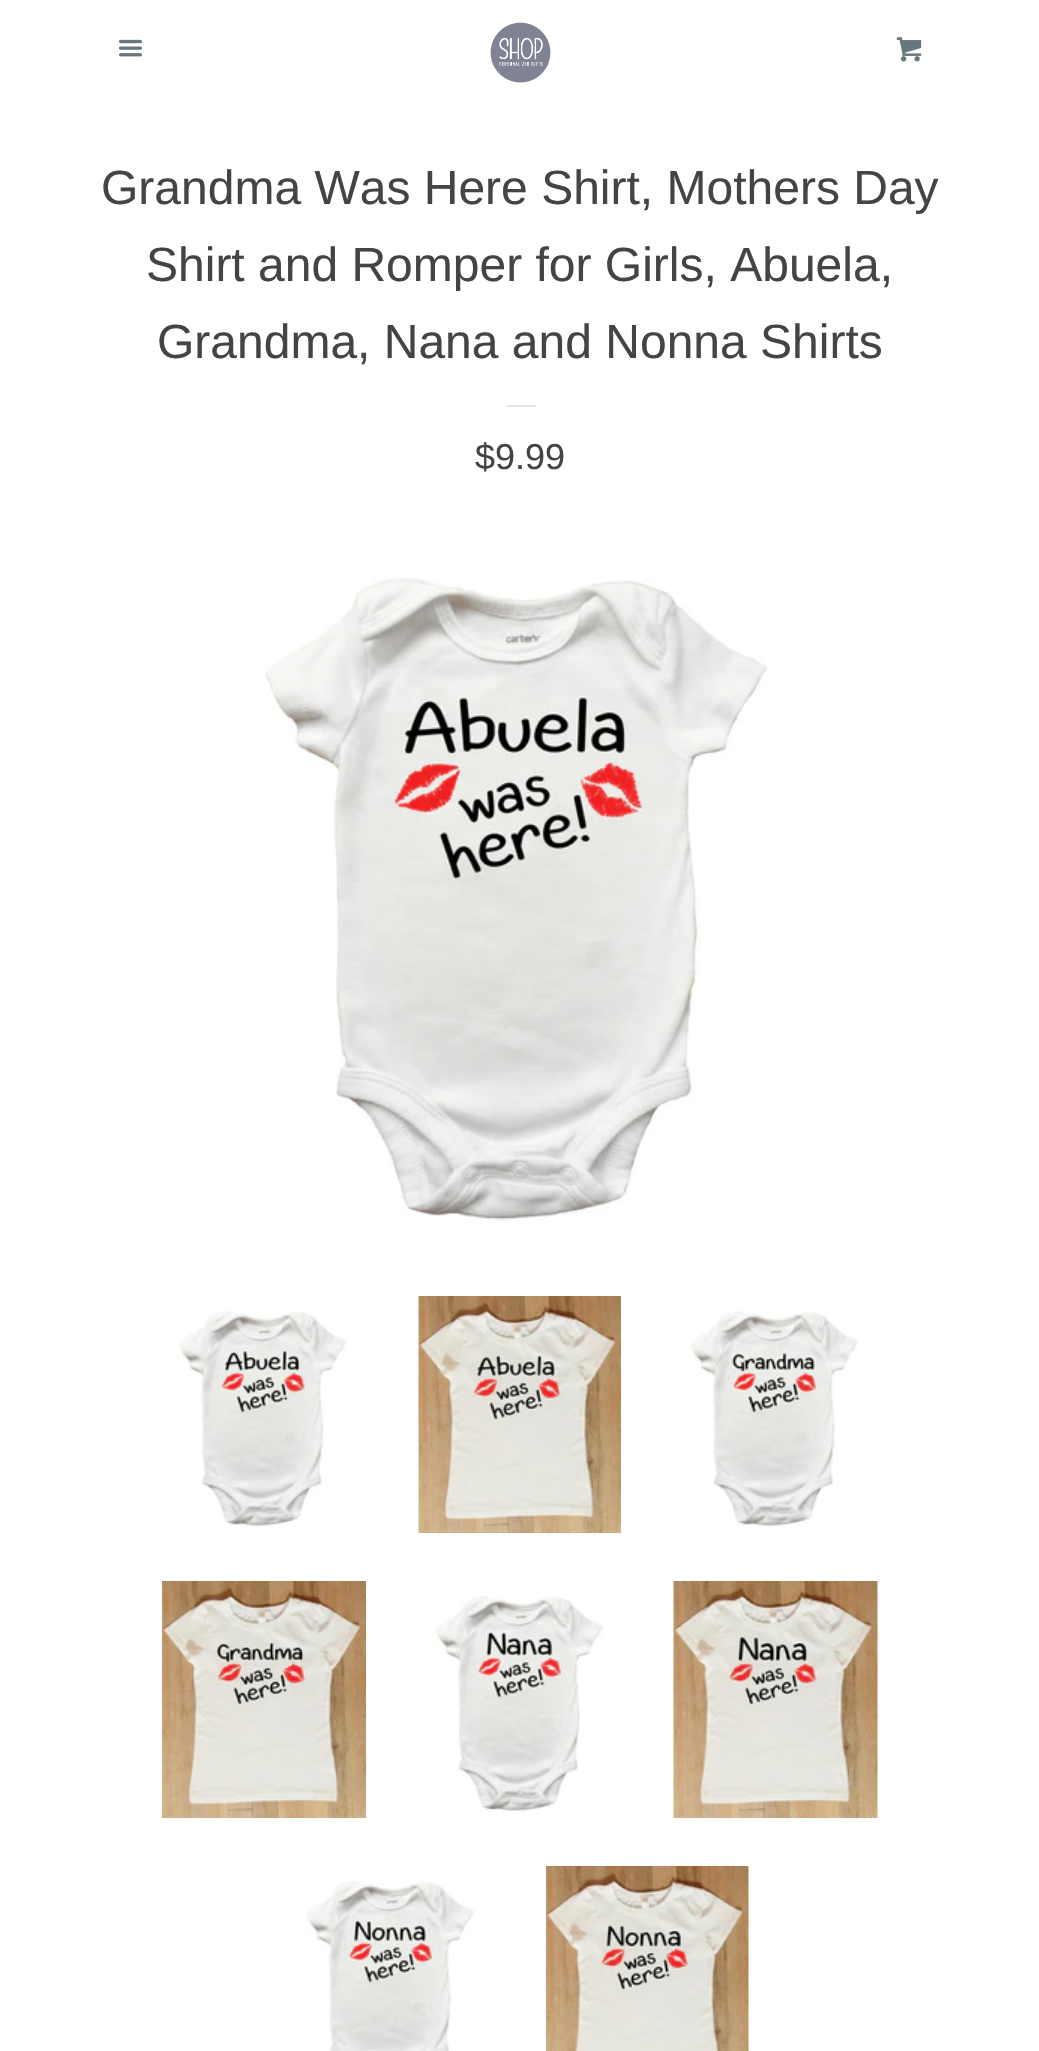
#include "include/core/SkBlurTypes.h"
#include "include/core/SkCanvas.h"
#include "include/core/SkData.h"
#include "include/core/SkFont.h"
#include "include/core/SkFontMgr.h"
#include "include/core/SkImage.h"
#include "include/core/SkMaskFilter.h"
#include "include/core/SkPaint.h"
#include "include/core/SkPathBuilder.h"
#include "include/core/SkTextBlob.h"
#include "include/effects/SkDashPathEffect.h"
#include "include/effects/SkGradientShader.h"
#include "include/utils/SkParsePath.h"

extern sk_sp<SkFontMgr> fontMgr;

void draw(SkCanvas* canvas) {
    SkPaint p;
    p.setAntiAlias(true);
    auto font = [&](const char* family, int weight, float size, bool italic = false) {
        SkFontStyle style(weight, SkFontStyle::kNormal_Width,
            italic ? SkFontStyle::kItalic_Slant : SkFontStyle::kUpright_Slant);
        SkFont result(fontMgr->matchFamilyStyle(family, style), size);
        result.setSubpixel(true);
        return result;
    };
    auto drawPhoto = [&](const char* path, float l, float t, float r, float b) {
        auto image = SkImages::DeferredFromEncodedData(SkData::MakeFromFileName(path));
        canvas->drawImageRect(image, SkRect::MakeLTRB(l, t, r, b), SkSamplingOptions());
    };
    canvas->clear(0xFFFFFFFF);
    drawPhoto("media/1.png", 119, 39, 142, 57);
    drawPhoto("media/2.png", 490, 22, 551, 83);
    drawPhoto("media/3.png", 896, 37, 922, 62);
    auto font1 = font("Liberation Sans", 400, 48);
    p.setColor(0xFF444444);
    {
        const struct { const char* s; float x, y; } items[] = {
            {"Grandma Was Here Shirt, Mothers Day", 101, 204},
            {"Shirt and Romper for Girls, Abuela,", 146, 281},
            {"Grandma, Nana and Nonna Shirts", 157, 358},
        };
        for (auto [s, x, y] : items) {
            canvas->drawString(s, x, y, font1, p);
        }
    }
    p.setColor(0xFFE7E7E7);
    canvas->drawRect(SkRect::MakeLTRB(506, 405, 536, 407), p);
    auto font2 = font("Liberation Sans", 400, 36);
    p.setColor(0xFF444444);
    canvas->drawString("$9.99", 475, 469, font2, p);
    drawPhoto("media/4.png", 265, 577, 768, 1221);
    drawPhoto("media/5.png", 178, 1308, 347, 1529);
    drawPhoto("media/6.png", 418, 1296, 621, 1533);
    drawPhoto("media/7.png", 690, 1308, 859, 1529);
    drawPhoto("media/8.png", 162, 1581, 366, 1818);
    drawPhoto("media/9.png", 435, 1593, 604, 1813);
    drawPhoto("media/10.png", 673, 1581, 878, 1818);
    drawPhoto("media/11.png", 306, 1878, 475, 2051);
    drawPhoto("media/12.png", 546, 1866, 749, 2051);
}
